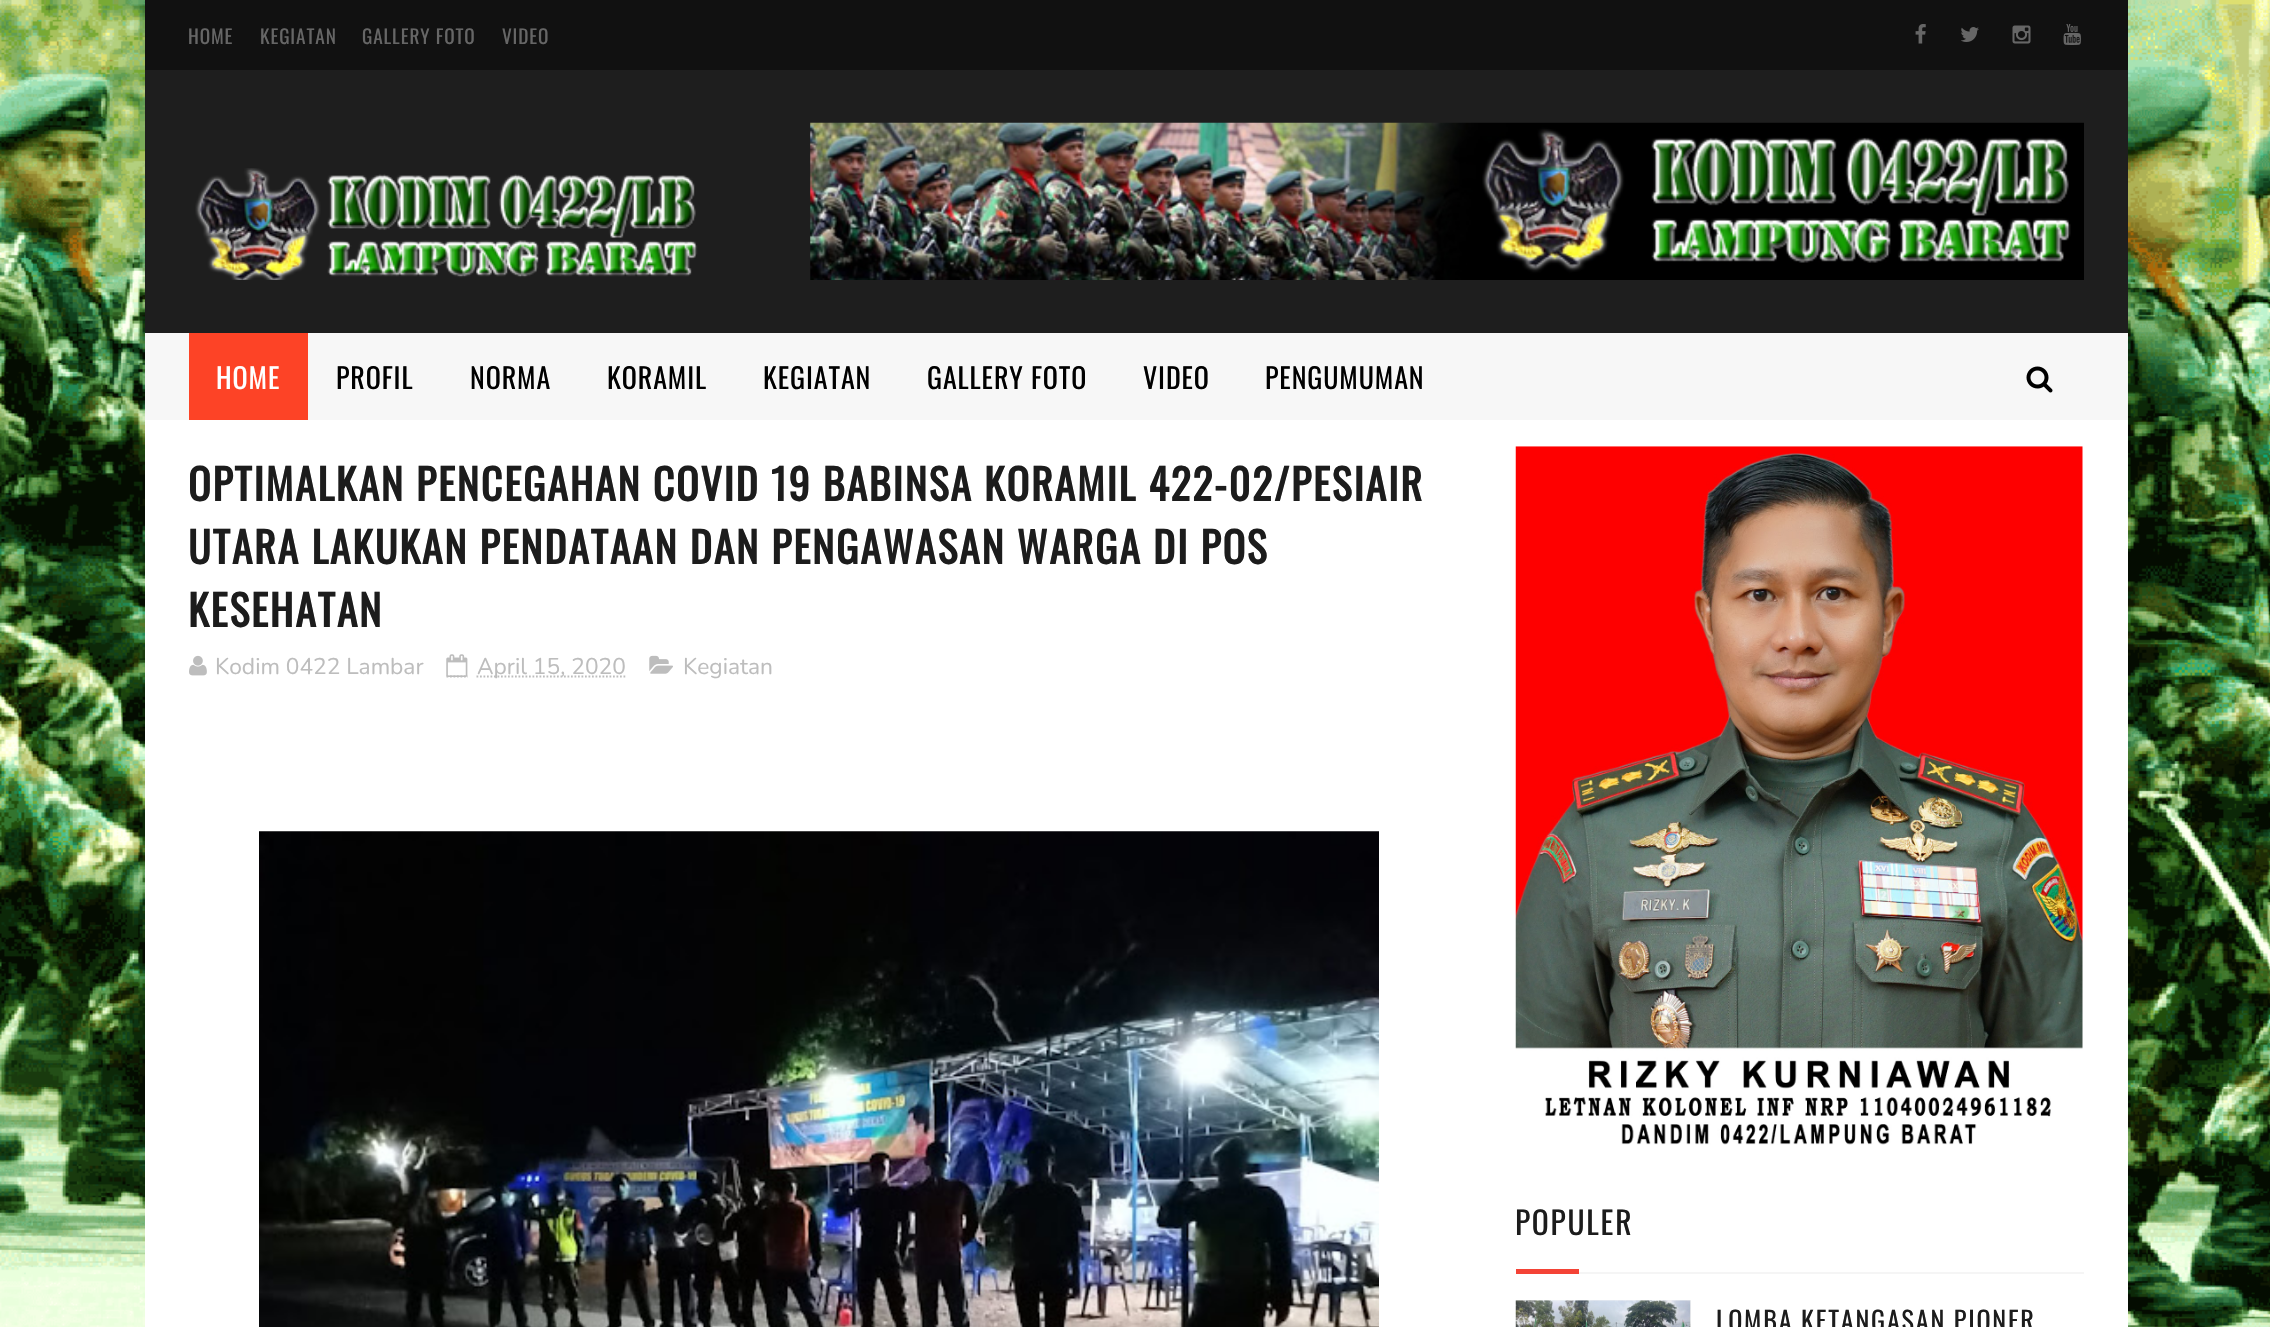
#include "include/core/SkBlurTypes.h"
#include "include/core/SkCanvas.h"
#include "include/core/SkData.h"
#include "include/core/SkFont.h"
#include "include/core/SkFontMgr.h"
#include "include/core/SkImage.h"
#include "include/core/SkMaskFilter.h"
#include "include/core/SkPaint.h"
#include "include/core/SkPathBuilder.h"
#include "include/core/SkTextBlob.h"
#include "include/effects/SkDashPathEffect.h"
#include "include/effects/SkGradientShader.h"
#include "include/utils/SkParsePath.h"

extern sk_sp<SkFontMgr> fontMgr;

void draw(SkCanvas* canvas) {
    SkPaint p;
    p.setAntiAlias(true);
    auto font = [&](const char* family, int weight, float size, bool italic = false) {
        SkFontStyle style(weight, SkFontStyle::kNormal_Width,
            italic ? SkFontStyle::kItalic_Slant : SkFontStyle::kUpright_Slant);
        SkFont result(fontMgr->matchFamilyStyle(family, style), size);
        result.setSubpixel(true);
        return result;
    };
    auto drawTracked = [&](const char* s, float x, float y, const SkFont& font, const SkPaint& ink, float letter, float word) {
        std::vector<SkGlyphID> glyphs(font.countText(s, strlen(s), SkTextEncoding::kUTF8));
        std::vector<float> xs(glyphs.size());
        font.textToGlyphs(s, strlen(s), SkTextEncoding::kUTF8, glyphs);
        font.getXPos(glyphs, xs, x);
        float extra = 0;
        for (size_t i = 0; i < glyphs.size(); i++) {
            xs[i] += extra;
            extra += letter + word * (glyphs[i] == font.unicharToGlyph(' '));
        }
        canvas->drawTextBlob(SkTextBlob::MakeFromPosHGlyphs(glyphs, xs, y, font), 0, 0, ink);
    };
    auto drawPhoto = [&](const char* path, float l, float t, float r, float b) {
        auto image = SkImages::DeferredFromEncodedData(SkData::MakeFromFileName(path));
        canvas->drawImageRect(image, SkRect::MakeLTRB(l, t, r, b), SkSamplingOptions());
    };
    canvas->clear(0xFFFFFFFF);
    drawPhoto("media/1.png", 0, 0, 2270, 1327);
    p.setColor(0xFFFFFFFF);
    canvas->drawRect(SkRect::MakeLTRB(145, 420, 2128, 1327), p);
    p.setColor(0xFF111111);
    canvas->drawRect(SkRect::MakeLTRB(145, 0, 2128, 70), p);
    auto font1 = font("Oswald", 400, 19.25f);
    p.setColor(0xFF666666);
    {
        const struct { const char* s; float x, y; } items[] = {
            {"HOME", 188, 44},
            {"KEGIATAN", 260, 44},
            {"GALLERY FOTO", 362, 44},
            {"VIDEO", 502, 44},
        };
        for (auto [s, x, y] : items) {
            drawTracked(s, x, y, font1, p, 0.9f, 0);
        }
    }
    drawPhoto("media/2.png", 1915, 24, 1926, 44);
    drawPhoto("media/3.png", 1961, 27, 1979, 42);
    drawPhoto("media/4.png", 2012, 25, 2031, 44);
    drawPhoto("media/5.png", 2063, 24, 2081, 45);
    p.setColor(0xFF1E1E1E);
    canvas->drawRect(SkRect::MakeLTRB(145, 70, 2128, 333), p);
    drawPhoto("media/6.png", 195, 168, 698, 280);
    drawPhoto("media/7.png", 810, 122, 2084, 280);
    p.setColor(0xFFF7F7F7);
    canvas->drawRect(SkRect::MakeLTRB(145, 333, 2128, 420), p);
    p.setColor(0xFFFD4326);
    canvas->drawRect(SkRect::MakeLTRB(189, 333, 308, 420), p);
    auto font2 = font("Oswald", 400, 28);
    p.setColor(0xFFFFFFFF);
    drawTracked("HOME", 216, 389, font2, p, 0.9f, 0);
    p.setColor(0xFF000000);
    {
        const struct { const char* s; float x, y; } items[] = {
            {"PROFIL", 336, 389},
            {"NORMA", 470, 389},
            {"KORAMIL", 607, 389},
            {"KEGIATAN", 763, 389},
            {"GALLERY FOTO", 927, 389},
            {"VIDEO", 1143, 389},
            {"PENGUMUMAN", 1265, 389},
        };
        for (auto [s, x, y] : items) {
            drawTracked(s, x, y, font2, p, 0.9f, 0);
        }
    }
    drawPhoto("media/8.png", 2026, 366, 2053, 393);
    auto font3 = font("Oswald", 700, 42);
    p.setColor(0xFF1C1C1C);
    {
        const struct { const char* s; float x, y; } items[] = {
            {"OPTIMALKAN PENCEGAHAN COVID 19 BABINSA KORAMIL 422-02/PESIAIR", 188, 501},
            {"UTARA LAKUKAN PENDATAAN DAN PENGAWASAN WARGA DI POS", 188, 564},
            {"KESEHATAN", 188, 627},
        };
        for (auto [s, x, y] : items) {
            drawTracked(s, x, y, font3, p, 1.75f, 0);
        }
    }
    drawPhoto("media/9.png", 189, 655, 207, 676);
    auto font4 = font("Nunito", 400, 22.75f);
    p.setColor(0xFFBDBDBD);
    canvas->drawString("Kodim 0422 Lambar", 215, 674, font4, p);
    p.setStyle(SkPaint::kStroke_Style);
    p.setStrokeWidth(1.8f);
    p.setPathEffect(SkDashPathEffect::Make({{1.75f, 1.75f}}, 0));
    canvas->drawPath(SkPathBuilder().moveTo(446.5f, 676.5f).lineTo(468, 676.5f).detach(), p);
    p.setPathEffect(nullptr);
    drawPhoto("media/10.png", 446, 654, 468, 677);
    p.setPathEffect(SkDashPathEffect::Make({{1.75f, 1.75f}}, 0));
    canvas->drawPath(SkPathBuilder().moveTo(476.5f, 676.5f).lineTo(625.5f, 676.5f).detach(), p);
    p.setPathEffect(nullptr);
    p.setStyle(SkPaint::kFill_Style);
    canvas->drawString("April 15, 2020", 477, 674, font4, p);
    drawPhoto("media/11.png", 649, 655, 673, 674);
    canvas->drawString("Kegiatan", 683, 674, font4, p);
    drawPhoto("media/12.png", 259, 831, 1379, 1327);
    drawPhoto("media/13.png", 1515, 446, 2083, 1145);
    p.setColor(0xFFF5F5F5);
    canvas->drawRect(SkRect::MakeLTRB(1579, 1272, 2084, 1274), p);
    auto font5 = font("Oswald", 400, 31.5f);
    p.setColor(0xFF1C1C1C);
    drawTracked("POPULER", 1515, 1235, font5, p, 1.75f, 0);
    p.setColor(0xFFF44336);
    canvas->drawRect(SkRect::MakeLTRB(1516, 1269, 1579, 1274), p);
    drawPhoto("media/14.png", 1515, 1300, 1691, 1327);
    p.setColor(0x0D282328);
    canvas->drawRect(SkRect::MakeLTRB(1516, 1300, 1691, 1327), p);
    auto font6 = font("Oswald", 400, 26.25f);
    p.setColor(0xFF1C1C1C);
    drawTracked("LOMBA KETANGASAN PIONER", 1716, 1331, font6, p, 1.75f, 0);
}
